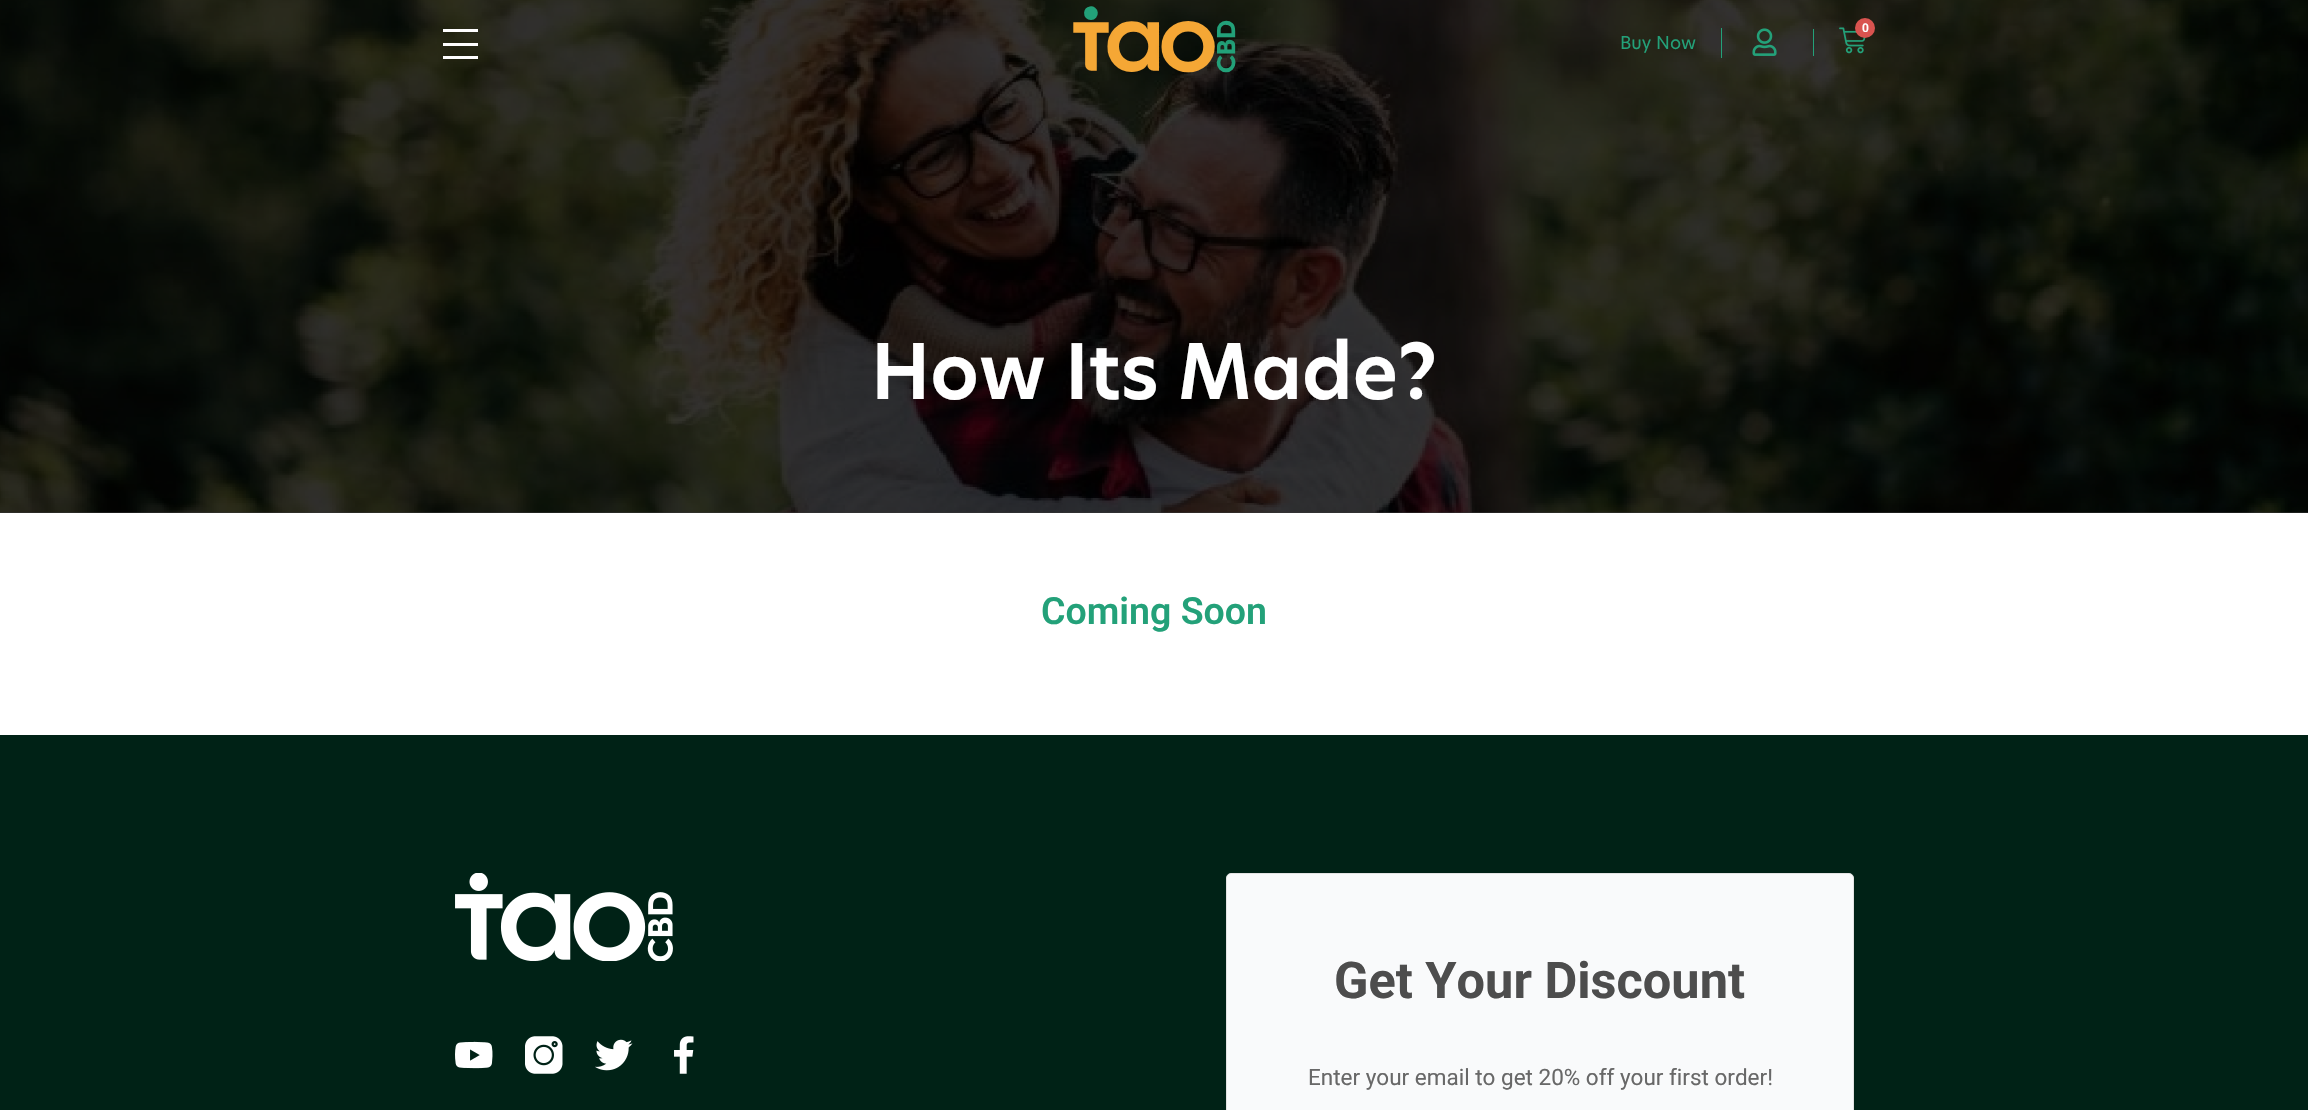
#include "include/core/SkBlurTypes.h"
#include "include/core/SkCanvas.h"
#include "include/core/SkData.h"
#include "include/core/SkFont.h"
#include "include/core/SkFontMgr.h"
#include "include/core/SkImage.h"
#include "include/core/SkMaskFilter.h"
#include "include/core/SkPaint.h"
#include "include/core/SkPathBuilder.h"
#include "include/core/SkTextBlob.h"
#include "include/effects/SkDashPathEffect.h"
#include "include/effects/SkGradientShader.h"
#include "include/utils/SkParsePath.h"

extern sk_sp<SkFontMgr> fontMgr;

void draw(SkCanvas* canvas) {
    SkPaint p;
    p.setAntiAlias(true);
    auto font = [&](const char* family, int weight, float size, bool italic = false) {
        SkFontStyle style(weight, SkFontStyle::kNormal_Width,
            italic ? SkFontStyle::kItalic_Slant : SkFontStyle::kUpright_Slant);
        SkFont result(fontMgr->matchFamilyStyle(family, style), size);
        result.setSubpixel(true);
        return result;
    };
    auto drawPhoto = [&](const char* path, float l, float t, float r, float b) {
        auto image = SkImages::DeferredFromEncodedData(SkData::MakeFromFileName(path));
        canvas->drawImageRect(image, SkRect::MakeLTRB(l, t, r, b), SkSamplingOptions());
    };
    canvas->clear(0xFFFFFFFF);
    p.setColor(0xFF333333);
    canvas->drawRect(SkRect::MakeLTRB(0, 512, 2308, 513), p);
    drawPhoto("media/4.png", 0, 0, 2308, 513);
    {
        const struct { float l, t, r, b; SkColor color; } items[] = {
            {443, 29, 478, 32, 0xFFFFFFFF},
            {443, 43, 478, 46, 0xFFFFFFFF},
            {443, 56, 478, 59, 0xFFFFFFFF},
        };
        for (auto [l, t, r, b, color] : items) {
            p.setColor(color);
            canvas->drawRect(SkRect::MakeLTRB(l, t, r, b), p);
        }
    }
    drawPhoto("media/1.png", 1073, 6, 1236, 75);
    p.setColor(0xFF23A179);
    canvas->drawRect(SkRect::MakeLTRB(1721, 28, 1722, 58), p);
    auto font1 = font("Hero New", 400, 17.5f);
    canvas->drawString("Buy Now", 1620, 49, font1, p);
    canvas->drawRect(SkRect::MakeLTRB(1813, 29, 1814, 56), p);
    drawPhoto("media/2.png", 1752, 28, 1777, 56);
    drawPhoto("media/3.png", 1839, 27, 1866, 54);
    p.setColor(0xFFD9534F);
    canvas->drawCircle(1865, 28, 10, p);
    auto font2 = font("Roboto", 600, 12);
    p.setColor(0xFFFFFFFF);
    canvas->drawString("0", 1862, 32, font2, p);
    auto font3 = font("Hero New", 600, 75);
    canvas->drawString("How Its Made?", 871, 399, font3, p);
    auto font4 = font("Roboto", 600, 37.5f);
    p.setColor(0xFF23A179);
    canvas->drawString("Coming Soon", 1041, 624, font4, p);
    p.setColor(0xFF002216);
    canvas->drawRect(SkRect::MakeLTRB(0, 735, 2308, 1110), p);
    drawPhoto("media/5.png", 455, 873, 673, 961);
    drawPhoto("media/6.png", 455, 1041, 493, 1069);
    drawPhoto("media/7.png", 525, 1036, 563, 1074);
    drawPhoto("media/8.png", 595, 1039, 633, 1071);
    drawPhoto("media/9.png", 674, 1036, 694, 1074);
    p.setColor(0xFFF9FAFB);
    canvas->drawRoundRect(SkRect::MakeLTRB(1226.5f, 873.5f, 1853.5f, 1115.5f), 4.5f, 4.5f, p);
    p.setStyle(SkPaint::kStroke_Style);
    p.setStrokeWidth(1);
    p.setColor(0xFFE3E3E3);
    canvas->drawRoundRect(SkRect::MakeLTRB(1226.5f, 873.5f, 1853.5f, 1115.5f), 4.5f, 4.5f, p);
    auto font5 = font("Roboto", 700, 50.5f);
    p.setStyle(SkPaint::kFill_Style);
    p.setColor(0xFF4D4D4D);
    canvas->drawString("Get Your Discount", 1334, 998, font5, p);
    auto font6 = font("Roboto", 400, 22.5f);
    p.setColor(0xFF686868);
    canvas->drawString("Enter your email to get 20% off your first order!", 1308, 1085, font6, p);
}
